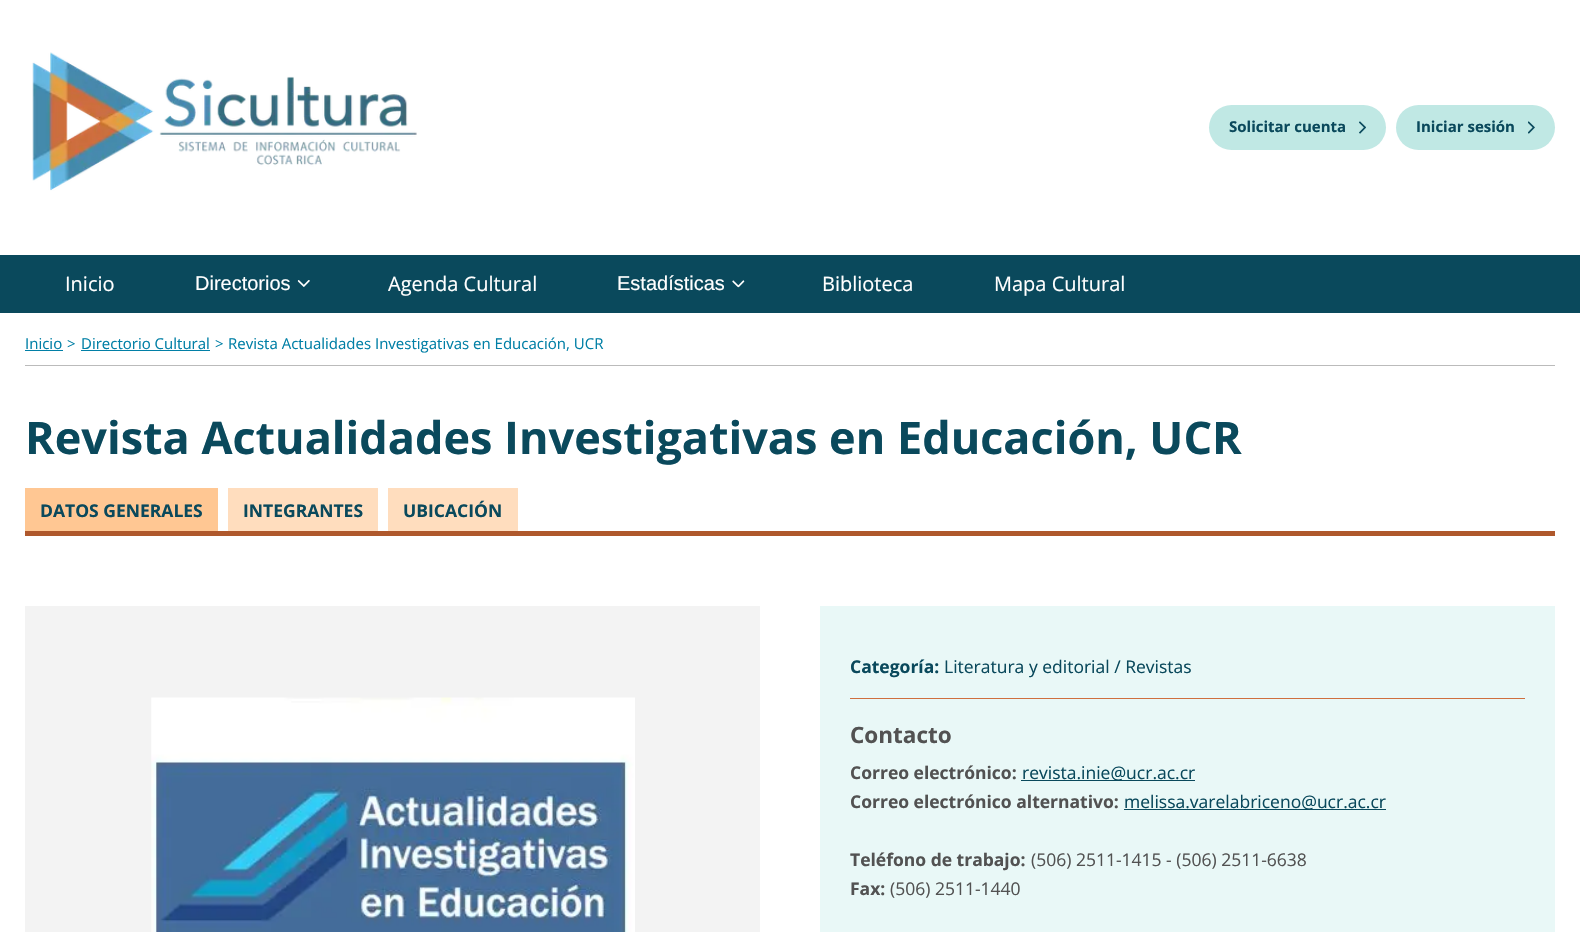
#include "include/core/SkBlurTypes.h"
#include "include/core/SkCanvas.h"
#include "include/core/SkData.h"
#include "include/core/SkFont.h"
#include "include/core/SkFontMgr.h"
#include "include/core/SkImage.h"
#include "include/core/SkMaskFilter.h"
#include "include/core/SkPaint.h"
#include "include/core/SkPathBuilder.h"
#include "include/core/SkTextBlob.h"
#include "include/effects/SkDashPathEffect.h"
#include "include/effects/SkGradientShader.h"
#include "include/utils/SkParsePath.h"

extern sk_sp<SkFontMgr> fontMgr;

void draw(SkCanvas* canvas) {
    SkPaint p;
    p.setAntiAlias(true);
    auto font = [&](const char* family, int weight, float size, bool italic = false) {
        SkFontStyle style(weight, SkFontStyle::kNormal_Width,
            italic ? SkFontStyle::kItalic_Slant : SkFontStyle::kUpright_Slant);
        SkFont result(fontMgr->matchFamilyStyle(family, style), size);
        result.setSubpixel(true);
        return result;
    };
    auto drawPhoto = [&](const char* path, float l, float t, float r, float b) {
        auto image = SkImages::DeferredFromEncodedData(SkData::MakeFromFileName(path));
        canvas->drawImageRect(image, SkRect::MakeLTRB(l, t, r, b), SkSamplingOptions());
    };
    canvas->clear(0xFFFFFFFF);
    drawPhoto("media/1.png", 32, 52, 417, 191);
    p.setColor(0xFFC0E8E4);
    canvas->drawRoundRect(SkRect::MakeLTRB(1209, 105, 1386, 150), 22.5f, 22.5f, p);
    auto font1 = font("Open Sans", 700, 15);
    p.setColor(0xFF0A495C);
    canvas->drawString("Solicitar cuenta", 1229, 132, font1, p);
    drawPhoto("media/2.png", 1359, 121, 1366, 134);
    p.setColor(0xFFC0E8E4);
    canvas->drawRoundRect(SkRect::MakeLTRB(1396, 105, 1555, 150), 22.5f, 22.5f, p);
    p.setColor(0xFF0A495C);
    canvas->drawString("Iniciar sesión", 1416, 132, font1, p);
    drawPhoto("media/3.png", 1528, 121, 1535, 134);
    canvas->drawRect(SkRect::MakeLTRB(0, 255, 1580, 313), p);
    auto font2 = font("Open Sans", 400, 20);
    p.setColor(0xFFFFFFFF);
    canvas->drawString("Inicio", 65, 291, font2, p);
    auto font3 = font("Liberation Sans", 400, 20);
    canvas->drawString("Directorios", 195, 290, font3, p);
    drawPhoto("media/4.png", 297, 280, 310, 287);
    canvas->drawString("Agenda Cultural", 388, 291, font2, p);
    canvas->drawString("Estadísticas", 617, 290, font3, p);
    drawPhoto("media/5.png", 732, 280, 745, 288);
    canvas->drawString("Biblioteca", 822, 291, font2, p);
    canvas->drawString("Mapa Cultural", 994, 291, font2, p);
    p.setColor(0xFFBBBBBB);
    canvas->drawRect(SkRect::MakeLTRB(25, 365, 1555, 366), p);
    auto font4 = font("Open Sans", 400, 15);
    p.setColor(0xFF017FA6);
    canvas->drawString("Inicio", 25, 349, font4, p);
    canvas->drawRect(SkRect::MakeLTRB(25, 350, 63, 351), p);
    canvas->drawString(">", 67, 349, font4, p);
    canvas->drawString("Directorio Cultural", 81, 349, font4, p);
    canvas->drawRect(SkRect::MakeLTRB(81, 350, 210, 351), p);
    canvas->drawString(">", 215, 349, font4, p);
    canvas->drawString("Revista Actualidades Investigativas en Educación, UCR", 228, 349, font4, p);
    auto font5 = font("Open Sans", 700, 45);
    p.setColor(0xFF0A495C);
    canvas->drawString("Revista Actualidades Investigativas en Educación, UCR", 25, 454, font5, p);
    p.setColor(0xFFAF582C);
    canvas->drawRect(SkRect::MakeLTRB(25, 531, 1555, 536), p);
    p.setColor(0xFFFFC793);
    canvas->drawRect(SkRect::MakeLTRB(25, 488, 218, 531), p);
    auto font6 = font("Open Sans", 700, 17.5f);
    p.setColor(0xFF0A495C);
    canvas->drawString("DATOS GENERALES", 40, 517, font6, p);
    p.setColor(0xFFFFDDBE);
    canvas->drawRect(SkRect::MakeLTRB(228, 488, 378, 531), p);
    p.setColor(0xFF0A495C);
    canvas->drawString("INTEGRANTES", 243, 517, font6, p);
    p.setColor(0xFFFFDDBE);
    canvas->drawRect(SkRect::MakeLTRB(388, 488, 518, 531), p);
    p.setColor(0xFF0A495C);
    canvas->drawString("UBICACIÓN", 403, 517, font6, p);
    p.setColor(0xFFF3F3F3);
    canvas->drawRect(SkRect::MakeLTRB(25, 606, 760, 932), p);
    drawPhoto("media/6.png", 151, 697, 635, 932);
    p.setColor(0xFFE9F8F7);
    canvas->drawRect(SkRect::MakeLTRB(820, 606, 1555, 932), p);
    p.setColor(0xFFCF6F3F);
    canvas->drawRect(SkRect::MakeLTRB(850, 698, 1525, 699), p);
    p.setColor(0xFF0A495C);
    canvas->drawString("Categoría:", 850, 673, font6, p);
    auto font7 = font("Open Sans", 400, 17.5f);
    canvas->drawString("Literatura y editorial / Revistas", 944, 673, font7, p);
    auto font8 = font("Open Sans", 700, 22.5f);
    p.setColor(0xFF525252);
    canvas->drawString("Contacto", 850, 743, font8, p);
    canvas->drawString("Correo electrónico:", 850, 779, font6, p);
    p.setColor(0xFF0A495C);
    canvas->drawRect(SkRect::MakeLTRB(1021, 780, 1195, 781), p);
    canvas->drawString("revista.inie@ucr.ac.cr", 1022, 779, font7, p);
    p.setColor(0xFF525252);
    canvas->drawString("Correo electrónico alternativo:", 850, 808, font6, p);
    p.setColor(0xFF0A495C);
    canvas->drawRect(SkRect::MakeLTRB(1124, 809, 1386, 810), p);
    canvas->drawString("melissa.varelabriceno@ucr.ac.cr", 1124, 808, font7, p);
    p.setColor(0xFF525252);
    canvas->drawString("Teléfono de trabajo:", 850, 866, font6, p);
    canvas->drawString("(506) 2511-1415 - (506) 2511-6638", 1031, 866, font7, p);
    canvas->drawString("Fax:", 850, 895, font6, p);
    canvas->drawString("(506) 2511-1440", 890, 895, font7, p);
}
